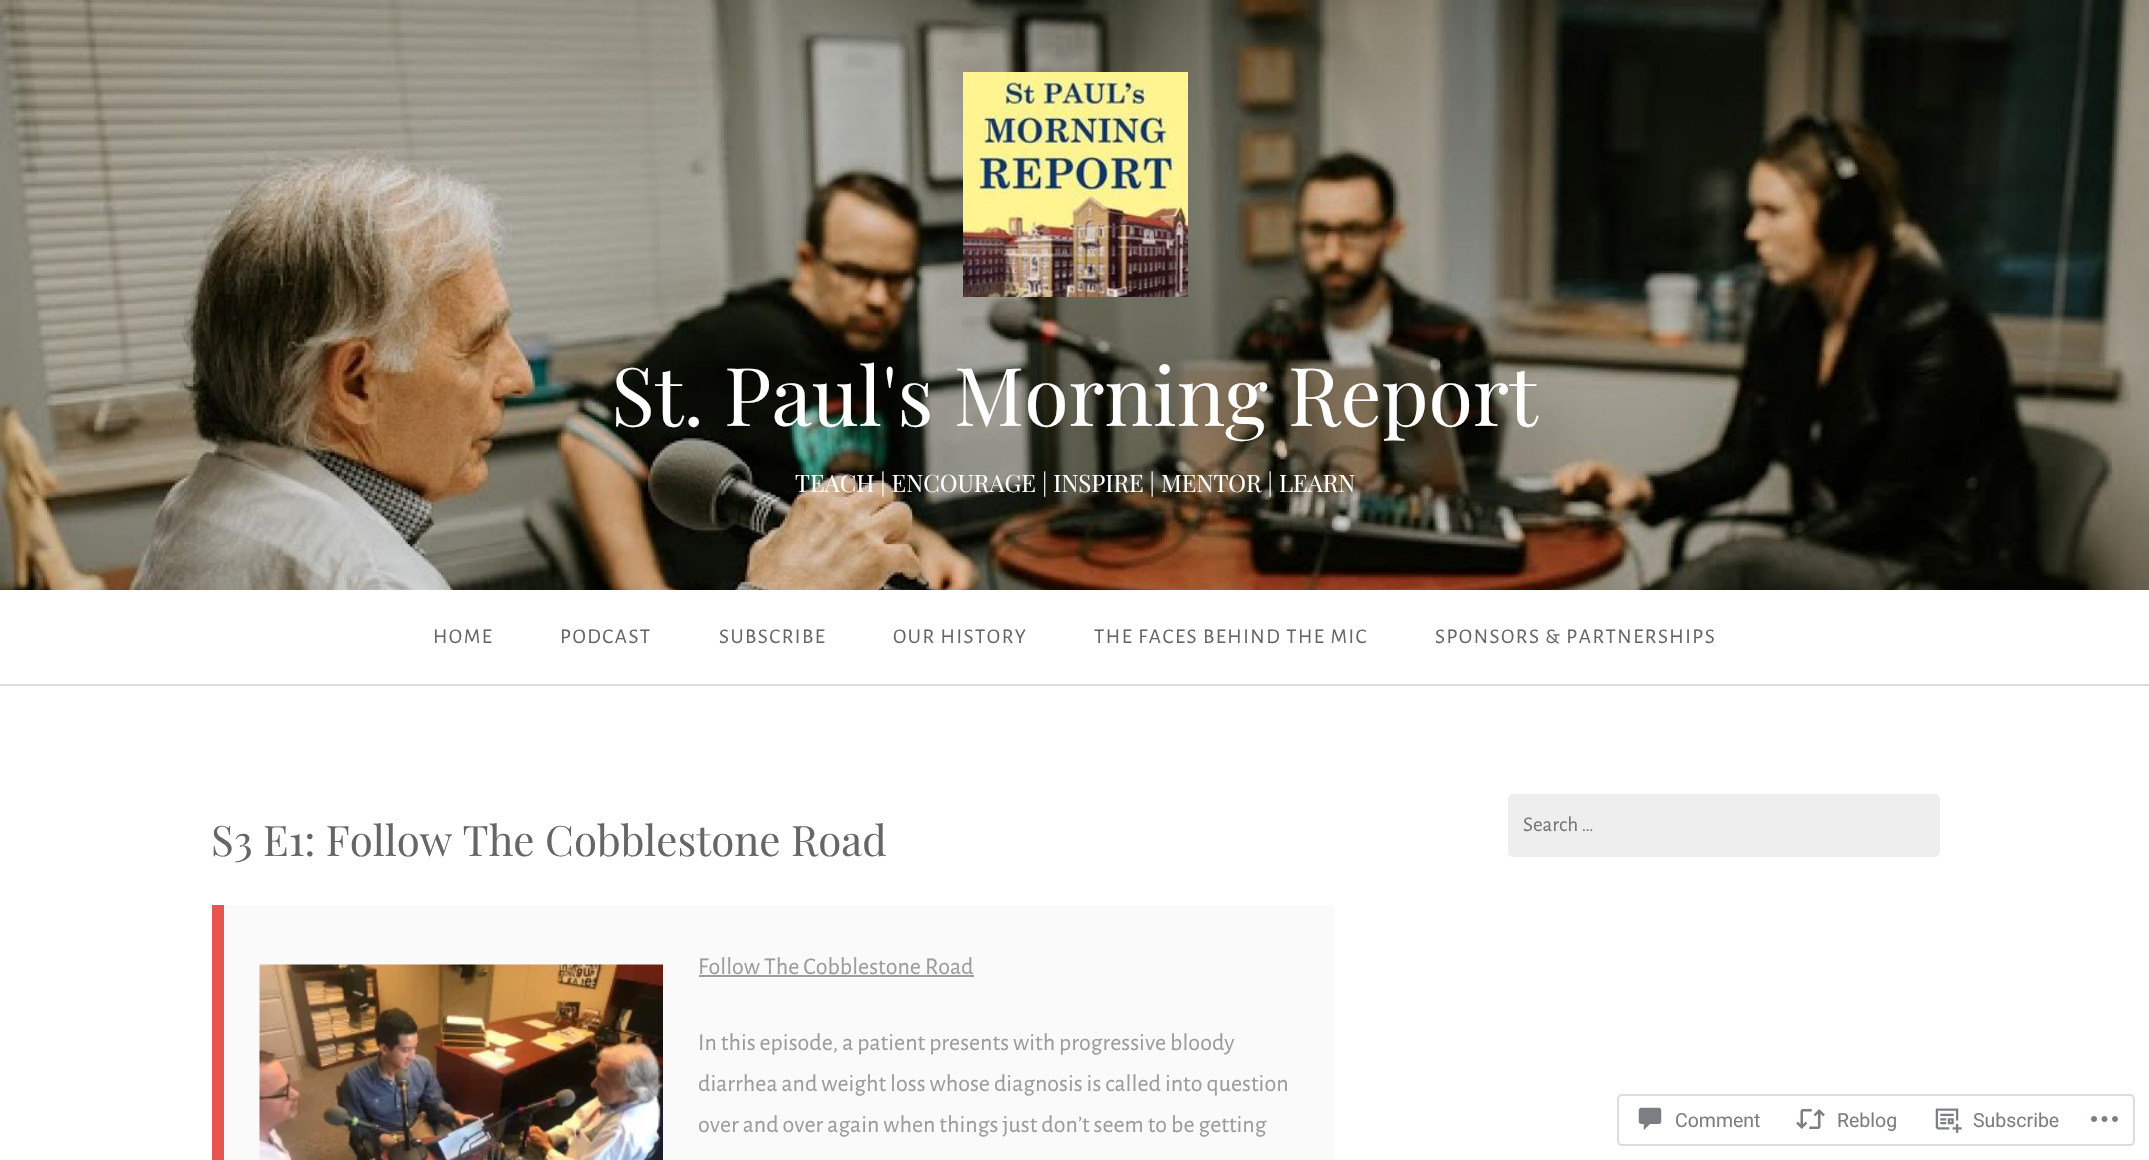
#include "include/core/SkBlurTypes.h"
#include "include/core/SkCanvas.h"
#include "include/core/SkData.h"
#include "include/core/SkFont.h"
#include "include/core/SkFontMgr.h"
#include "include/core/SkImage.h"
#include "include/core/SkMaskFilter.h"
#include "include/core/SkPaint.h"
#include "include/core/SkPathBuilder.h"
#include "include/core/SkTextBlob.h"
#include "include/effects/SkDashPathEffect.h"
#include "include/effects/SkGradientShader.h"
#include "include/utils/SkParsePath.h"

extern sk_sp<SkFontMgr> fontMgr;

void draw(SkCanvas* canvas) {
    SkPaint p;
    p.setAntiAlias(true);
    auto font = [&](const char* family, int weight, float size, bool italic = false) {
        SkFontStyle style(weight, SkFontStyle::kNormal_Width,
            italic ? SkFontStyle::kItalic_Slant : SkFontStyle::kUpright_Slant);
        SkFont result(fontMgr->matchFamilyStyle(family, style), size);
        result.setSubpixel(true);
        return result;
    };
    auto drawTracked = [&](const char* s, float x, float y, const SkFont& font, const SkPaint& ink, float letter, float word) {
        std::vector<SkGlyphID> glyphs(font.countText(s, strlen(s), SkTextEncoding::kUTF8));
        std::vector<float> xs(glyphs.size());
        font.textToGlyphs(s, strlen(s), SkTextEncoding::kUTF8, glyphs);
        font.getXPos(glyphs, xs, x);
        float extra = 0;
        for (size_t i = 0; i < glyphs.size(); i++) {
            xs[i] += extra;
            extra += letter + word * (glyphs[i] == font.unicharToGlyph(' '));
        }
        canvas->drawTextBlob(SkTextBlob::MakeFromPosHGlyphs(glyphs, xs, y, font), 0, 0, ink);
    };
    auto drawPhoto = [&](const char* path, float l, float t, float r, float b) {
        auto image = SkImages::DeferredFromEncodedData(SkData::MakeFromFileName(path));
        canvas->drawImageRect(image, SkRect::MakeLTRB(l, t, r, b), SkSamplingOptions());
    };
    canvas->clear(0xFFFFFFFF);
    drawPhoto("media/1.png", 0, 0, 2149, 590);
    drawPhoto("media/2.png", 963, 72, 1188, 297);
    auto font1 = font("Playfair Display", 400, 81);
    p.setColor(0xFFFFFFFF);
    canvas->drawString("St. Paul's Morning Report", 611, 426, font1, p);
    auto font2 = font("Playfair Display", 400, 24);
    canvas->drawString("TEACH | ENCOURAGE | INSPIRE | MENTOR | LEARN", 795, 492, font2, p);
    p.setColor(0xFFDDDDDD);
    canvas->drawRect(SkRect::MakeLTRB(0, 684, 2149, 686), p);
    auto font3 = font("Alegreya Sans", 400, 21);
    p.setColor(0xFF666666);
    {
        const struct { const char* s; float x, y; } items[] = {
            {"HOME", 433, 643},
            {"PODCAST", 560, 643},
            {"SUBSCRIBE", 719, 643},
            {"OUR HISTORY", 893, 643},
            {"THE FACES BEHIND THE MIC", 1094, 643},
            {"SPONSORS & PARTNERSHIPS", 1435, 643},
        };
        for (auto [s, x, y] : items) {
            drawTracked(s, x, y, font3, p, 1.5f, 0);
        }
    }
    auto font4 = font("Playfair Display", 400, 42);
    canvas->drawString("S3 E1: Follow The Cobblestone Road", 211, 856, font4, p);
    p.setColor(0xFFFAFAFA);
    canvas->drawRect(SkRect::MakeLTRB(224, 905, 1334, 1160), p);
    p.setColor(0xFFE8554E);
    canvas->drawRect(SkRect::MakeLTRB(212, 905, 224, 1160), p);
    drawPhoto("media/3.png", 259, 964, 663, 1160);
    auto font5 = font("Alegreya Sans", 400, 24);
    p.setColor(0xFF9C9C9C);
    canvas->drawString("Follow The Cobblestone Road", 698, 974, font5, p);
    canvas->drawRect(SkRect::MakeLTRB(699, 975, 974, 977), p);
    {
        const struct { const char* s; float x, y; } items[] = {
            {"In this episode, a patient presents with progressive bloody", 698, 1050},
            {"diarrhea and weight loss whose diagnosis is called into question", 698, 1091},
            {"over and over again when things just don’t seem to be getting", 698, 1132},
        };
        for (auto [s, x, y] : items) {
            canvas->drawString(s, x, y, font5, p);
        }
    }
    p.setColor(0xFFEEEEEE);
    canvas->drawRoundRect(SkRect::MakeLTRB(1508, 794, 1940, 857), 5, 5, p);
    p.setColor(0xFF757575);
    canvas->drawString("Search …", 1523, 831, font3, p);
    p.setStyle(SkPaint::kStroke_Style);
    p.setStrokeWidth(2);
    p.setColor(0xFFDDDDDF);
    canvas->drawRoundRect(SkRect::MakeLTRB(1618, 1095, 2134, 1145), 4, 4, p);
    drawPhoto("media/4.png", 1638, 1107, 1662, 1131);
    auto font6 = font("Roboto", 400, 19.5f);
    p.setStyle(SkPaint::kFill_Style);
    p.setColor(0xFF7B7F85);
    canvas->drawString("Comment", 1675, 1127, font6, p);
    drawPhoto("media/5.png", 1796, 1109, 1825, 1129);
    canvas->drawString("Reblog", 1837, 1127, font6, p);
    drawPhoto("media/6.png", 1935, 1108, 1962, 1133);
    canvas->drawString("Subscribe", 1973, 1127, font6, p);
    drawPhoto("media/7.png", 2091, 1116, 2118, 1122);
}
